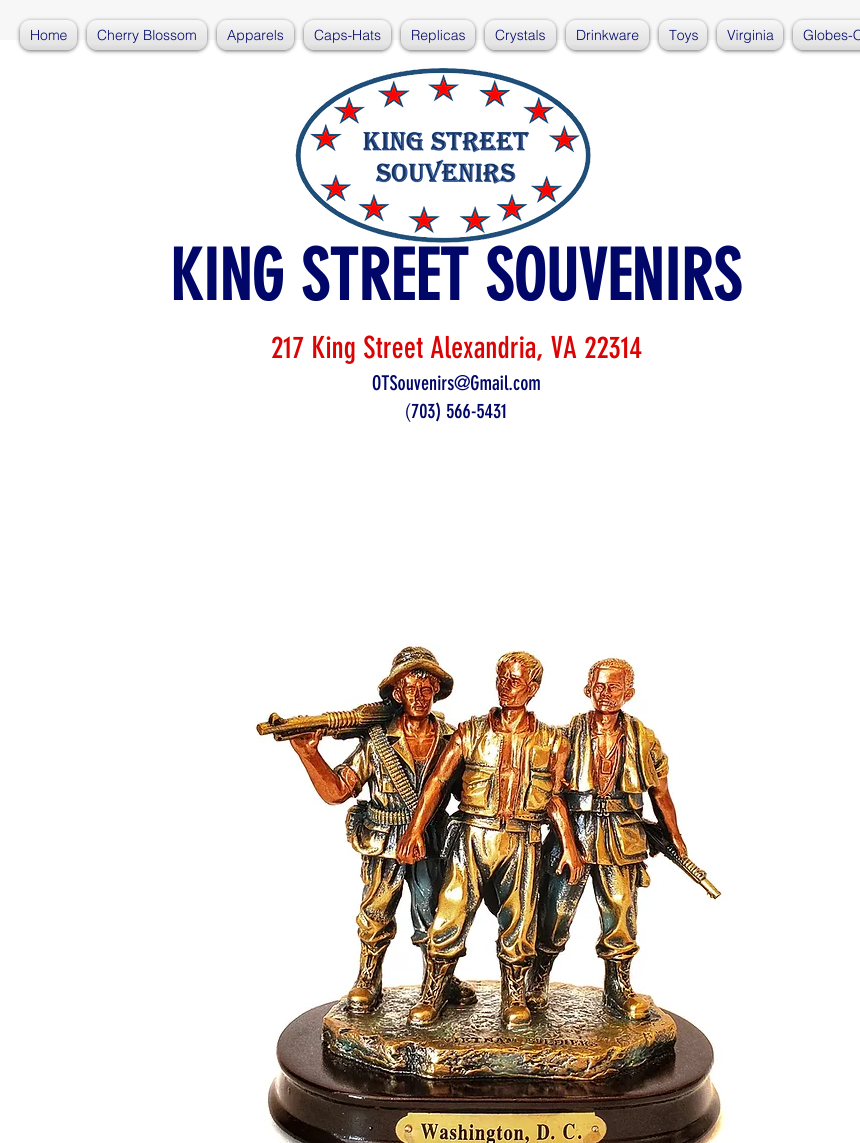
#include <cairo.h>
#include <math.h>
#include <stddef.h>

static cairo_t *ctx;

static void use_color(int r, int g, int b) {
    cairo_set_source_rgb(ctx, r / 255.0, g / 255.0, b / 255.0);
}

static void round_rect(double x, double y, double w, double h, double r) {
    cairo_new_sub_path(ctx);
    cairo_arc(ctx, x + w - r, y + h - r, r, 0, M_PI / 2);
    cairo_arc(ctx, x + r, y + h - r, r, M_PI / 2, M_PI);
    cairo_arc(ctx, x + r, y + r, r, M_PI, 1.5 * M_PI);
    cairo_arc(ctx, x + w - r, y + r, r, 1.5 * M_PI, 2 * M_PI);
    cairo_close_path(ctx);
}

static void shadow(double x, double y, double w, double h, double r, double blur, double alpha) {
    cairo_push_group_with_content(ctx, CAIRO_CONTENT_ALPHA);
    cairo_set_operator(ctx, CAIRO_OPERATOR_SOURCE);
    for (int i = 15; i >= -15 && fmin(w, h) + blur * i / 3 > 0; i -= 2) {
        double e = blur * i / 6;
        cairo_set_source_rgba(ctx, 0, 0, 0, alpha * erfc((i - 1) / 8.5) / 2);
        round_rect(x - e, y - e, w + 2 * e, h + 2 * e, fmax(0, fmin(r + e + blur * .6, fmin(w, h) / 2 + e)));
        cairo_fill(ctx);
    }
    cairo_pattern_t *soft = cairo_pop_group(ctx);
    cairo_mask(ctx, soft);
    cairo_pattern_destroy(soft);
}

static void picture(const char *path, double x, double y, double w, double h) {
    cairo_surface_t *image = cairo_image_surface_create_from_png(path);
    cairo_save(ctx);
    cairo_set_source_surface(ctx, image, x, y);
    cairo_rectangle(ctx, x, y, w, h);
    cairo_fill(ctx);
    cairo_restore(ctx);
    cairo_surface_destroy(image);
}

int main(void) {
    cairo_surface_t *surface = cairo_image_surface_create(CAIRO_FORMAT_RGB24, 860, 1143);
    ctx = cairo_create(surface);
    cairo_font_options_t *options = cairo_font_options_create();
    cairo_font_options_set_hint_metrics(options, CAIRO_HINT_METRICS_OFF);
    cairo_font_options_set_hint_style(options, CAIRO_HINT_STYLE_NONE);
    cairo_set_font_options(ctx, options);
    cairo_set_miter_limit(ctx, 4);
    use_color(255, 255, 255);
    cairo_paint(ctx);
    use_color(247, 247, 247);
    cairo_rectangle(ctx, 0, 0, 860, 40);
    cairo_fill(ctx);
    use_color(0, 0, 0);
    shadow(20, 21, 57, 30, 10, 2, 0.6);
    use_color(255, 255, 255);
    round_rect(20, 20, 57, 30, 10);
    cairo_fill(ctx);
    picture("img1.png", 20, 20, 57, 30);
    cairo_select_font_face(ctx, "helvetica Light", CAIRO_FONT_SLANT_NORMAL, CAIRO_FONT_WEIGHT_NORMAL);
    cairo_set_font_size(ctx, 14);
    use_color(0, 7, 105);
    cairo_move_to(ctx, 30, 40);
    cairo_show_text(ctx, "Home");
    use_color(0, 0, 0);
    shadow(87, 21, 120, 30, 10, 2, 0.6);
    use_color(255, 255, 255);
    round_rect(87, 20, 120, 30, 10);
    cairo_fill(ctx);
    picture("img2.png", 87, 20, 120, 30);
    use_color(0, 7, 105);
    cairo_move_to(ctx, 97, 40);
    cairo_show_text(ctx, "Cherry Blossom");
    use_color(0, 0, 0);
    shadow(217, 21, 77, 30, 10, 2, 0.6);
    use_color(255, 255, 255);
    round_rect(217, 20, 77, 30, 10);
    cairo_fill(ctx);
    picture("img3.png", 217, 20, 77, 30);
    use_color(0, 7, 105);
    cairo_move_to(ctx, 227, 40);
    cairo_show_text(ctx, "Apparels");
    use_color(0, 0, 0);
    shadow(304, 21, 87, 30, 10, 2, 0.6);
    use_color(255, 255, 255);
    round_rect(304, 20, 87, 30, 10);
    cairo_fill(ctx);
    picture("img4.png", 304, 20, 87, 30);
    use_color(0, 7, 105);
    cairo_move_to(ctx, 314, 40);
    cairo_show_text(ctx, "Caps-Hats");
    use_color(0, 0, 0);
    shadow(401, 21, 74, 30, 10, 2, 0.6);
    use_color(255, 255, 255);
    round_rect(401, 20, 74, 30, 10);
    cairo_fill(ctx);
    picture("img5.png", 401, 20, 74, 30);
    use_color(0, 7, 105);
    cairo_move_to(ctx, 411, 40);
    cairo_show_text(ctx, "Replicas");
    use_color(0, 0, 0);
    shadow(485, 21, 71, 30, 10, 2, 0.6);
    use_color(255, 255, 255);
    round_rect(485, 20, 71, 30, 10);
    cairo_fill(ctx);
    picture("img6.png", 485, 20, 71, 30);
    use_color(0, 7, 105);
    cairo_move_to(ctx, 495, 40);
    cairo_show_text(ctx, "Crystals");
    use_color(0, 0, 0);
    shadow(566, 21, 83, 30, 10, 2, 0.6);
    use_color(255, 255, 255);
    round_rect(566, 20, 83, 30, 10);
    cairo_fill(ctx);
    picture("img7.png", 566, 20, 83, 30);
    use_color(0, 7, 105);
    cairo_move_to(ctx, 576, 40);
    cairo_show_text(ctx, "Drinkware");
    use_color(0, 0, 0);
    shadow(659, 21, 48, 30, 10, 2, 0.6);
    use_color(255, 255, 255);
    round_rect(659, 20, 48, 30, 10);
    cairo_fill(ctx);
    picture("img8.png", 659, 20, 48, 30);
    use_color(0, 7, 105);
    cairo_move_to(ctx, 669, 40);
    cairo_show_text(ctx, "Toys");
    use_color(0, 0, 0);
    shadow(717, 21, 66, 30, 10, 2, 0.6);
    use_color(255, 255, 255);
    round_rect(717, 20, 66, 30, 10);
    cairo_fill(ctx);
    picture("img9.png", 717, 20, 66, 30);
    use_color(0, 7, 105);
    cairo_move_to(ctx, 727, 40);
    cairo_show_text(ctx, "Virginia");
    use_color(0, 0, 0);
    shadow(793, 21, 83, 30, 10, 2, 0.6);
    use_color(255, 255, 255);
    round_rect(793, 20, 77, 30, 10);
    cairo_fill(ctx);
    picture("img10.png", 793, 20, 67, 30);
    use_color(0, 7, 105);
    cairo_move_to(ctx, 803, 40);
    cairo_show_text(ctx, "Globes-O");
    picture("img11.png", 295, 67, 296, 176);
    cairo_select_font_face(ctx, "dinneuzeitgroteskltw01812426", CAIRO_FONT_SLANT_NORMAL, CAIRO_FONT_WEIGHT_BOLD);
    cairo_set_font_size(ctx, 70);
    cairo_move_to(ctx, 170, 300);
    cairo_show_text(ctx, "KING STREET SOUVENIRS");
    cairo_select_font_face(ctx, "dinneuzeitgroteskltw01812426", CAIRO_FONT_SLANT_NORMAL, CAIRO_FONT_WEIGHT_NORMAL);
    cairo_set_font_size(ctx, 30);
    use_color(219, 4, 4);
    cairo_move_to(ctx, 271, 358);
    cairo_show_text(ctx, "217 King Street Alexandria, VA 22314");
    cairo_set_font_size(ctx, 20);
    use_color(0, 7, 105);
    cairo_move_to(ctx, 372, 390);
    cairo_show_text(ctx, "OTSouvenirs@Gmail.com");
    cairo_select_font_face(ctx, "helvetica Light", CAIRO_FONT_SLANT_NORMAL, CAIRO_FONT_WEIGHT_NORMAL);
    cairo_move_to(ctx, 405, 418);
    cairo_show_text(ctx, "(");
    cairo_select_font_face(ctx, "dinneuzeitgroteskltw01812426", CAIRO_FONT_SLANT_NORMAL, CAIRO_FONT_WEIGHT_NORMAL);
    cairo_move_to(ctx, 411, 418);
    cairo_show_text(ctx, "703) 566-5431");
    picture("img12.png", 254, 643, 475, 500);
    cairo_surface_write_to_png(surface, "result.png");
    cairo_font_options_destroy(options);
    cairo_destroy(ctx);
    cairo_surface_destroy(surface);
    return 0;
}
